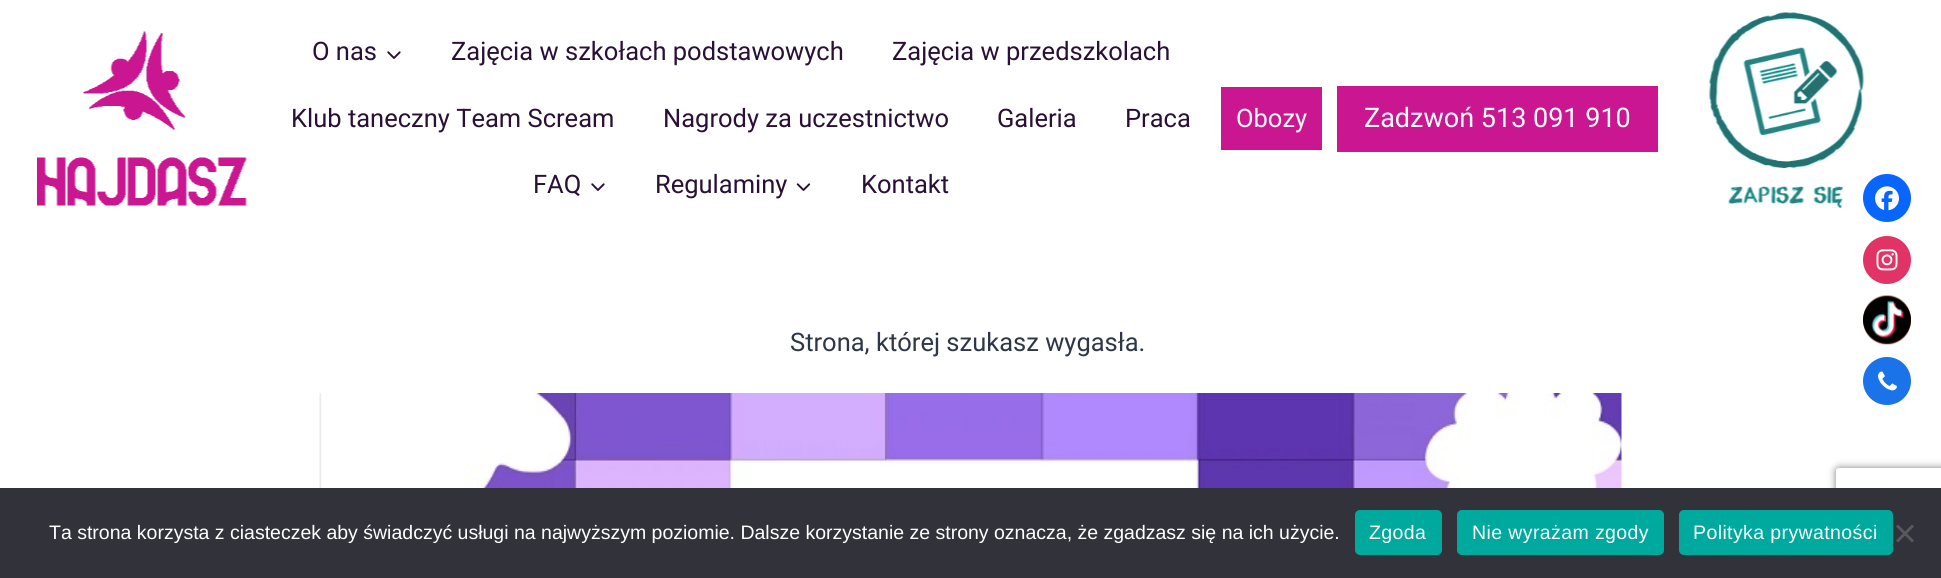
#include <cairo.h>
#include <math.h>
#include <stddef.h>

static cairo_t *ctx;

static void use_color(int r, int g, int b) {
    cairo_set_source_rgb(ctx, r / 255.0, g / 255.0, b / 255.0);
}

static void spaced_text(double x, double y, const char *s, double letter, double word) {
    cairo_move_to(ctx, x, y);
    while (*s) {
        char ch[5] = {0};
        int n = 0;
        do ch[n++] = *s++; while ((*s & 0xC0) == 0x80);
        cairo_show_text(ctx, ch);
        cairo_rel_move_to(ctx, letter + word * (*ch == ' '), 0);
    }
}

static void round_rect(double x, double y, double w, double h, double r) {
    cairo_new_sub_path(ctx);
    cairo_arc(ctx, x + w - r, y + h - r, r, 0, M_PI / 2);
    cairo_arc(ctx, x + r, y + h - r, r, M_PI / 2, M_PI);
    cairo_arc(ctx, x + r, y + r, r, M_PI, 1.5 * M_PI);
    cairo_arc(ctx, x + w - r, y + r, r, 1.5 * M_PI, 2 * M_PI);
    cairo_close_path(ctx);
}

static void shadow(double x, double y, double w, double h, double r, double blur, double alpha) {
    cairo_push_group_with_content(ctx, CAIRO_CONTENT_ALPHA);
    cairo_set_operator(ctx, CAIRO_OPERATOR_SOURCE);
    for (int i = 15; i >= -15 && fmin(w, h) + blur * i / 3 > 0; i -= 2) {
        double e = blur * i / 6;
        cairo_set_source_rgba(ctx, 0, 0, 0, alpha * erfc((i - 1) / 8.5) / 2);
        round_rect(x - e, y - e, w + 2 * e, h + 2 * e, fmax(0, fmin(r + e + blur * .6, fmin(w, h) / 2 + e)));
        cairo_fill(ctx);
    }
    cairo_pattern_t *soft = cairo_pop_group(ctx);
    cairo_mask(ctx, soft);
    cairo_pattern_destroy(soft);
}

static void picture(const char *path, double x, double y, double w, double h) {
    cairo_surface_t *image = cairo_image_surface_create_from_png(path);
    cairo_save(ctx);
    cairo_set_source_surface(ctx, image, x, y);
    cairo_rectangle(ctx, x, y, w, h);
    cairo_fill(ctx);
    cairo_restore(ctx);
    cairo_surface_destroy(image);
}

int main(void) {
    cairo_surface_t *surface = cairo_image_surface_create(CAIRO_FORMAT_RGB24, 1941, 578);
    ctx = cairo_create(surface);
    cairo_font_options_t *options = cairo_font_options_create();
    cairo_font_options_set_hint_metrics(options, CAIRO_HINT_METRICS_OFF);
    cairo_font_options_set_hint_style(options, CAIRO_HINT_STYLE_NONE);
    cairo_set_font_options(ctx, options);
    cairo_set_miter_limit(ctx, 4);
    use_color(255, 255, 255);
    cairo_paint(ctx);
    picture("img1.png", 37, 31, 210, 175);
    cairo_select_font_face(ctx, "Roboto", CAIRO_FONT_SLANT_NORMAL, CAIRO_FONT_WEIGHT_NORMAL);
    cairo_set_font_size(ctx, 25.5);
    use_color(42, 16, 53);
    cairo_move_to(ctx, 312, 60);
    cairo_show_text(ctx, "O nas");
    picture("img2.png", 387, 51, 14, 8);
    cairo_move_to(ctx, 451, 60);
    cairo_show_text(ctx, "Zajęcia w szkołach podstawowych");
    cairo_move_to(ctx, 892, 60);
    cairo_show_text(ctx, "Zajęcia w przedszkolach");
    cairo_move_to(ctx, 291, 127);
    cairo_show_text(ctx, "Klub taneczny Team Scream");
    cairo_move_to(ctx, 663, 127);
    cairo_show_text(ctx, "Nagrody za uczestnictwo");
    cairo_move_to(ctx, 997, 127);
    cairo_show_text(ctx, "Galeria");
    cairo_move_to(ctx, 1125, 127);
    cairo_show_text(ctx, "Praca");
    cairo_move_to(ctx, 533, 193);
    cairo_show_text(ctx, "FAQ");
    picture("img2.png", 591, 183, 14, 8);
    cairo_move_to(ctx, 655, 193);
    cairo_show_text(ctx, "Regulaminy");
    picture("img3.png", 796, 183, 15, 8);
    cairo_move_to(ctx, 861, 193);
    cairo_show_text(ctx, "Kontakt");
    use_color(203, 22, 146);
    cairo_rectangle(ctx, 1221, 87, 101, 63);
    cairo_fill(ctx);
    use_color(249, 250, 247);
    cairo_move_to(ctx, 1236, 127);
    cairo_show_text(ctx, "Obozy");
    use_color(203, 22, 146);
    cairo_rectangle(ctx, 1337, 86, 321, 66);
    cairo_fill(ctx);
    cairo_set_font_size(ctx, 27);
    use_color(255, 255, 255);
    cairo_move_to(ctx, 1364, 127);
    cairo_show_text(ctx, "Zadzwoń 513 091 910");
    picture("img4.png", 1709, 12, 155, 196);
    cairo_set_font_size(ctx, 25.5);
    use_color(45, 55, 72);
    cairo_move_to(ctx, 790, 351);
    cairo_show_text(ctx, "Strona, której szukasz wygasła.");
    picture("img5.png", 319, 393, 1303, 95);
    use_color(8, 102, 255);
    cairo_arc(ctx, 1887, 198, 24, 0, 2 * M_PI);
    cairo_fill(ctx);
    picture("img6.png", 1875, 186, 24, 25);
    use_color(226, 51, 103);
    cairo_arc(ctx, 1887, 260, 24, 0, 2 * M_PI);
    cairo_fill(ctx);
    picture("img7.png", 1876, 249, 22, 22);
    use_color(241, 100, 30);
    cairo_arc(ctx, 1887, 320, 24, 0, 2 * M_PI);
    cairo_fill(ctx);
    picture("img8.png", 1863, 295, 48, 50);
    use_color(26, 115, 232);
    cairo_arc(ctx, 1887, 381, 24, 0, 2 * M_PI);
    cairo_fill(ctx);
    picture("img9.png", 1878, 371, 19, 20);
    cairo_save(ctx);
    cairo_set_fill_rule(ctx, CAIRO_FILL_RULE_EVEN_ODD);
    cairo_new_path(ctx);
    cairo_move_to(ctx, 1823, 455);
    cairo_line_to(ctx, 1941, 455);
    cairo_line_to(ctx, 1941, 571);
    cairo_line_to(ctx, 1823, 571);
    cairo_close_path(ctx);
    cairo_move_to(ctx, 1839, 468);
    cairo_line_to(ctx, 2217, 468);
    cairo_curve_to(ctx, 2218.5, 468, 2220, 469.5, 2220, 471);
    cairo_line_to(ctx, 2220, 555);
    cairo_curve_to(ctx, 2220, 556.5, 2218.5, 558, 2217, 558);
    cairo_line_to(ctx, 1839, 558);
    cairo_curve_to(ctx, 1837.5, 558, 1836, 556.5, 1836, 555);
    cairo_line_to(ctx, 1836, 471);
    cairo_curve_to(ctx, 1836, 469.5, 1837.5, 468, 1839, 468);
    cairo_close_path(ctx);
    cairo_clip(ctx);
    use_color(128, 128, 128);
    shadow(1836, 468, 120, 90, 3, 4, 1);
    cairo_restore(ctx);
    use_color(50, 50, 58);
    cairo_rectangle(ctx, 0, 488, 1941, 90);
    cairo_fill(ctx);
    cairo_select_font_face(ctx, "Liberation Sans", CAIRO_FONT_SLANT_NORMAL, CAIRO_FONT_WEIGHT_NORMAL);
    cairo_set_font_size(ctx, 19.5);
    use_color(255, 255, 255);
    cairo_move_to(ctx, 49, 539);
    cairo_show_text(ctx, "Ta strona korzysta z ciasteczek aby świadczyć usługi na najwyższym poziomie. Dalsze korzystanie ze strony oznacza, że zgadzasz się na ich użycie.");
    use_color(0, 169, 157);
    round_rect(1355, 510, 87, 45, 5);
    cairo_fill(ctx);
    use_color(255, 255, 255);
    spaced_text(1369, 539, "Zgoda", 0.4, 0);
    use_color(0, 169, 157);
    round_rect(1457, 510, 207, 45, 5);
    cairo_fill(ctx);
    use_color(255, 255, 255);
    spaced_text(1472, 539, "Nie wyrażam zgody", 0.4, 0);
    use_color(0, 169, 157);
    round_rect(1679, 510, 214, 45, 5);
    cairo_fill(ctx);
    use_color(255, 255, 255);
    spaced_text(1693, 539, "Polityka prywatności", 0.4, 0);
    use_color(89, 89, 93);
    cairo_new_path(ctx);
    cairo_move_to(ctx, 1912, 524.5);
    cairo_line_to(ctx, 1914, 526.5);
    cairo_line_to(ctx, 1898, 542.5);
    cairo_line_to(ctx, 1896, 540.5);
    cairo_close_path(ctx);
    cairo_fill(ctx);
    cairo_new_path(ctx);
    cairo_move_to(ctx, 1896, 526.5);
    cairo_line_to(ctx, 1898, 524.5);
    cairo_line_to(ctx, 1914, 540.5);
    cairo_line_to(ctx, 1912, 542.5);
    cairo_close_path(ctx);
    cairo_fill(ctx);
    cairo_surface_write_to_png(surface, "result.png");
    cairo_font_options_destroy(options);
    cairo_destroy(ctx);
    cairo_surface_destroy(surface);
    return 0;
}
